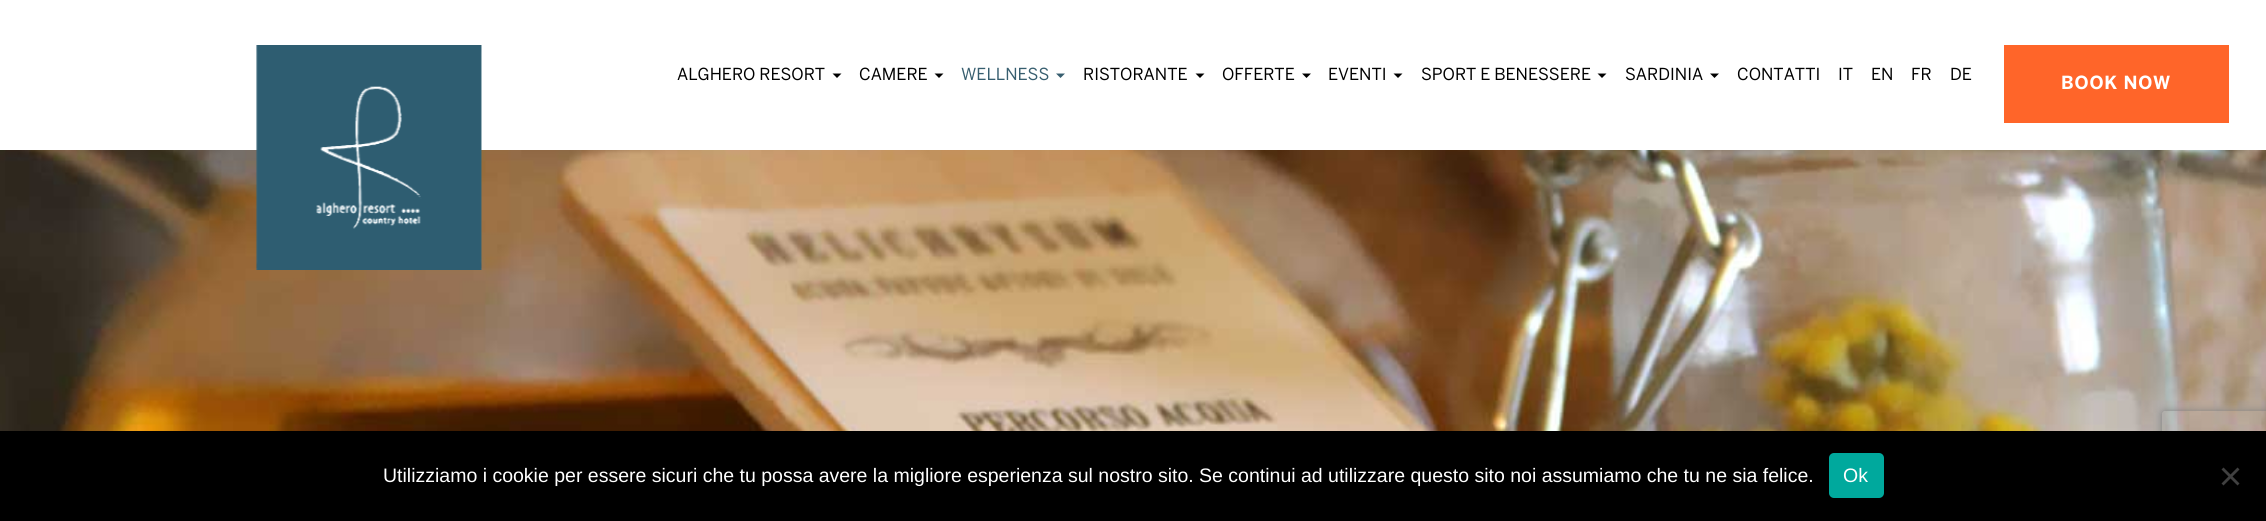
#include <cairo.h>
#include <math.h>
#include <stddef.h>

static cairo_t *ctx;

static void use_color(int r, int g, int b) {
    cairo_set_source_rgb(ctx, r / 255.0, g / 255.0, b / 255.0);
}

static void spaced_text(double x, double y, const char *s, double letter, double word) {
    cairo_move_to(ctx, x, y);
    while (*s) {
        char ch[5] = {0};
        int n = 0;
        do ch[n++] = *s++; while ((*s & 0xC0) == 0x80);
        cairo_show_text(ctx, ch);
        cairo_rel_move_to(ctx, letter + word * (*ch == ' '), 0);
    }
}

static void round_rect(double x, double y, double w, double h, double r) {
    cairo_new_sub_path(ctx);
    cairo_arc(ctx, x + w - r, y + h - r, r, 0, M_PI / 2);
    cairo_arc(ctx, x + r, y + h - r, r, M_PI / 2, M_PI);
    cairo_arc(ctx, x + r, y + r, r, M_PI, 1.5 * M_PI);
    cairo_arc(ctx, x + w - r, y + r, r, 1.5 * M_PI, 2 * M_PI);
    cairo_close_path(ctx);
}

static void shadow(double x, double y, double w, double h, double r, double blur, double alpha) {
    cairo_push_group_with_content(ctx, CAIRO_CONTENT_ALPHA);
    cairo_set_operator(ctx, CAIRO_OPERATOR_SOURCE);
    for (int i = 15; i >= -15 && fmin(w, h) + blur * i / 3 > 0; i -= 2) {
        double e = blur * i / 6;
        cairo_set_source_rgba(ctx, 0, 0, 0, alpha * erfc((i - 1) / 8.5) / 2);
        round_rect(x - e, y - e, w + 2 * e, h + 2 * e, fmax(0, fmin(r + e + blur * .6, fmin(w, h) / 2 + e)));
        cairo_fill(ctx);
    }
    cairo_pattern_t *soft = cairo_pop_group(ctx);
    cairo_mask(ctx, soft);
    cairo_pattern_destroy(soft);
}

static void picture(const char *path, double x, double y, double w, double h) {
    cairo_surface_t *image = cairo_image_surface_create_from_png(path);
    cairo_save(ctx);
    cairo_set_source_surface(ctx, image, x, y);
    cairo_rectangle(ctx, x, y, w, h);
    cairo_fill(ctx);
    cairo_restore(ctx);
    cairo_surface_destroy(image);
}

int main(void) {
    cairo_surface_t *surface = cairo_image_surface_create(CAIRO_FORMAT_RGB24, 2266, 521);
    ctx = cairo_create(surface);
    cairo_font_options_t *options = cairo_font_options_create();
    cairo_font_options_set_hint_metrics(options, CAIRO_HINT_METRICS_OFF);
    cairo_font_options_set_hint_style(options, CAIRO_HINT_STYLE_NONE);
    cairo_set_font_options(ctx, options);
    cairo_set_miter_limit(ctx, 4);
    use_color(255, 255, 255);
    cairo_paint(ctx);
    picture("img2.png", 0, 150, 2266, 281);
    picture("img1.png", 256, 45, 226, 225);
    cairo_select_font_face(ctx, "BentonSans", CAIRO_FONT_SLANT_NORMAL, CAIRO_FONT_WEIGHT_NORMAL);
    cairo_set_font_size(ctx, 16.5);
    use_color(0, 0, 0);
    cairo_move_to(ctx, 677, 80);
    cairo_show_text(ctx, "ALGHERO RESORT");
    cairo_new_path(ctx);
    cairo_move_to(ctx, 832.5, 73.5);
    cairo_line_to(ctx, 841.5, 73.5);
    cairo_line_to(ctx, 837, 78);
    cairo_close_path(ctx);
    cairo_fill(ctx);
    cairo_move_to(ctx, 859, 80);
    cairo_show_text(ctx, "CAMERE");
    cairo_new_path(ctx);
    cairo_move_to(ctx, 934.5, 73.5);
    cairo_line_to(ctx, 943.5, 73.5);
    cairo_line_to(ctx, 939, 78);
    cairo_close_path(ctx);
    cairo_fill(ctx);
    use_color(55, 94, 111);
    cairo_move_to(ctx, 961, 80);
    cairo_show_text(ctx, "WELLNESS");
    cairo_new_path(ctx);
    cairo_move_to(ctx, 1056, 73.5);
    cairo_line_to(ctx, 1065, 73.5);
    cairo_line_to(ctx, 1060.5, 78);
    cairo_close_path(ctx);
    cairo_fill(ctx);
    use_color(0, 0, 0);
    cairo_move_to(ctx, 1083, 80);
    cairo_show_text(ctx, "RISTORANTE");
    cairo_new_path(ctx);
    cairo_move_to(ctx, 1195.5, 73.5);
    cairo_line_to(ctx, 1204.5, 73.5);
    cairo_line_to(ctx, 1200, 78);
    cairo_close_path(ctx);
    cairo_fill(ctx);
    cairo_move_to(ctx, 1222, 80);
    cairo_show_text(ctx, "OFFERTE");
    cairo_new_path(ctx);
    cairo_move_to(ctx, 1302, 73.5);
    cairo_line_to(ctx, 1311, 73.5);
    cairo_line_to(ctx, 1306.5, 78);
    cairo_close_path(ctx);
    cairo_fill(ctx);
    cairo_move_to(ctx, 1328, 80);
    cairo_show_text(ctx, "EVENTI");
    cairo_new_path(ctx);
    cairo_move_to(ctx, 1393.5, 73.5);
    cairo_line_to(ctx, 1402.5, 73.5);
    cairo_line_to(ctx, 1398, 78);
    cairo_close_path(ctx);
    cairo_fill(ctx);
    cairo_move_to(ctx, 1421, 80);
    cairo_show_text(ctx, "SPORT E BENESSERE");
    cairo_new_path(ctx);
    cairo_move_to(ctx, 1597.5, 73.5);
    cairo_line_to(ctx, 1606.5, 73.5);
    cairo_line_to(ctx, 1602, 78);
    cairo_close_path(ctx);
    cairo_fill(ctx);
    cairo_move_to(ctx, 1625, 80);
    cairo_show_text(ctx, "SARDINIA");
    cairo_new_path(ctx);
    cairo_move_to(ctx, 1710, 73.5);
    cairo_line_to(ctx, 1719, 73.5);
    cairo_line_to(ctx, 1714.5, 78);
    cairo_close_path(ctx);
    cairo_fill(ctx);
    cairo_move_to(ctx, 1737, 80);
    cairo_show_text(ctx, "CONTATTI");
    cairo_move_to(ctx, 1838, 80);
    cairo_show_text(ctx, "IT");
    cairo_move_to(ctx, 1871, 80);
    cairo_show_text(ctx, "EN");
    cairo_move_to(ctx, 1911, 80);
    cairo_show_text(ctx, "FR");
    cairo_move_to(ctx, 1950, 80);
    cairo_show_text(ctx, "DE");
    use_color(255, 101, 41);
    cairo_rectangle(ctx, 2004, 45, 225, 78);
    cairo_fill(ctx);
    cairo_select_font_face(ctx, "BentonSans", CAIRO_FONT_SLANT_NORMAL, CAIRO_FONT_WEIGHT_BOLD);
    cairo_set_font_size(ctx, 18);
    use_color(255, 255, 255);
    spaced_text(2061, 89, "BOOK NOW", 0.75, 0);
    cairo_save(ctx);
    cairo_set_fill_rule(ctx, CAIRO_FILL_RULE_EVEN_ODD);
    cairo_new_path(ctx);
    cairo_move_to(ctx, 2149, 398);
    cairo_line_to(ctx, 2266, 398);
    cairo_line_to(ctx, 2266, 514);
    cairo_line_to(ctx, 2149, 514);
    cairo_close_path(ctx);
    cairo_move_to(ctx, 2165, 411);
    cairo_line_to(ctx, 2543, 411);
    cairo_curve_to(ctx, 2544.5, 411, 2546, 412.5, 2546, 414);
    cairo_line_to(ctx, 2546, 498);
    cairo_curve_to(ctx, 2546, 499.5, 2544.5, 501, 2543, 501);
    cairo_line_to(ctx, 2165, 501);
    cairo_curve_to(ctx, 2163.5, 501, 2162, 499.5, 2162, 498);
    cairo_line_to(ctx, 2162, 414);
    cairo_curve_to(ctx, 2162, 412.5, 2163.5, 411, 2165, 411);
    cairo_close_path(ctx);
    cairo_clip(ctx);
    use_color(128, 128, 128);
    shadow(2162, 411, 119, 90, 3, 4, 1);
    cairo_restore(ctx);
    use_color(0, 0, 0);
    cairo_rectangle(ctx, 0, 431, 2266, 90);
    cairo_fill(ctx);
    cairo_select_font_face(ctx, "Liberation Sans", CAIRO_FONT_SLANT_NORMAL, CAIRO_FONT_WEIGHT_NORMAL);
    cairo_set_font_size(ctx, 19.5);
    use_color(255, 255, 255);
    cairo_move_to(ctx, 383, 482);
    cairo_show_text(ctx, "Utilizziamo i cookie per essere sicuri che tu possa avere la migliore esperienza sul nostro sito. Se continui ad utilizzare questo sito noi assumiamo che tu ne sia felice.");
    use_color(0, 169, 157);
    round_rect(1829, 453, 55, 45, 5);
    cairo_fill(ctx);
    use_color(255, 255, 255);
    cairo_move_to(ctx, 1843, 482);
    cairo_show_text(ctx, "Ok");
    use_color(64, 64, 64);
    cairo_new_path(ctx);
    cairo_move_to(ctx, 2237.5, 467.5);
    cairo_line_to(ctx, 2239.5, 469.5);
    cairo_line_to(ctx, 2223.5, 485.5);
    cairo_line_to(ctx, 2221.5, 483.5);
    cairo_close_path(ctx);
    cairo_fill(ctx);
    cairo_new_path(ctx);
    cairo_move_to(ctx, 2221.5, 469.5);
    cairo_line_to(ctx, 2223.5, 467.5);
    cairo_line_to(ctx, 2239.5, 483.5);
    cairo_line_to(ctx, 2237.5, 485.5);
    cairo_close_path(ctx);
    cairo_fill(ctx);
    cairo_surface_write_to_png(surface, "result.png");
    cairo_font_options_destroy(options);
    cairo_destroy(ctx);
    cairo_surface_destroy(surface);
    return 0;
}
